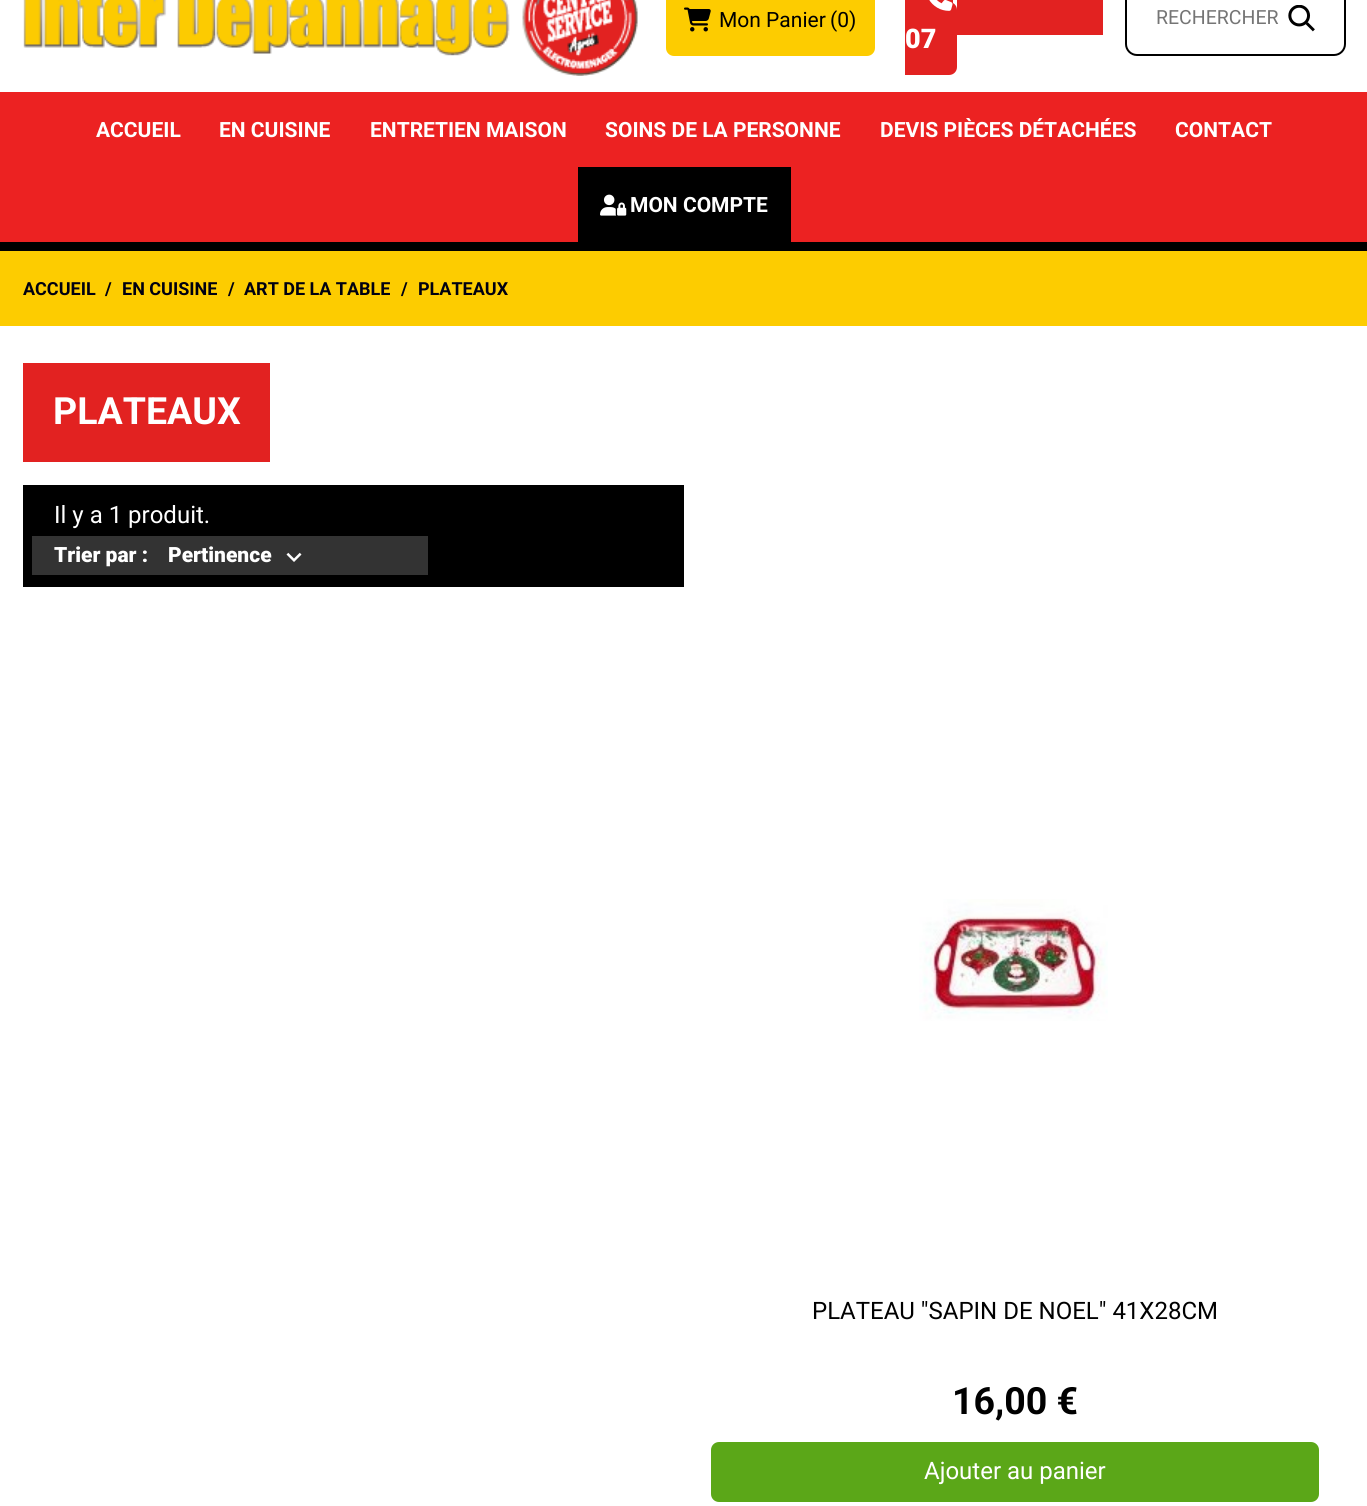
#include <cairo.h>
#include <math.h>
#include <stddef.h>

static cairo_t *ctx;

static void use_color(int r, int g, int b) {
    cairo_set_source_rgb(ctx, r / 255.0, g / 255.0, b / 255.0);
}

static void round_rect(double x, double y, double w, double h, double r) {
    cairo_new_sub_path(ctx);
    cairo_arc(ctx, x + w - r, y + h - r, r, 0, M_PI / 2);
    cairo_arc(ctx, x + r, y + h - r, r, M_PI / 2, M_PI);
    cairo_arc(ctx, x + r, y + r, r, M_PI, 1.5 * M_PI);
    cairo_arc(ctx, x + w - r, y + r, r, 1.5 * M_PI, 2 * M_PI);
    cairo_close_path(ctx);
}

static void picture(const char *path, double x, double y, double w, double h) {
    cairo_surface_t *image = cairo_image_surface_create_from_png(path);
    cairo_save(ctx);
    cairo_set_source_surface(ctx, image, x, y);
    cairo_rectangle(ctx, x, y, w, h);
    cairo_fill(ctx);
    cairo_restore(ctx);
    cairo_surface_destroy(image);
}

int main(void) {
    cairo_surface_t *surface = cairo_image_surface_create(CAIRO_FORMAT_RGB24, 1367, 1506);
    ctx = cairo_create(surface);
    cairo_font_options_t *options = cairo_font_options_create();
    cairo_font_options_set_hint_metrics(options, CAIRO_HINT_METRICS_OFF);
    cairo_font_options_set_hint_style(options, CAIRO_HINT_STYLE_NONE);
    cairo_set_font_options(ctx, options);
    cairo_set_miter_limit(ctx, 4);
    use_color(255, 255, 255);
    cairo_paint(ctx);
    picture("img1.png", 23, 0, 615, 76);
    use_color(253, 204, 0);
    round_rect(666, -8, 209, 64, 8);
    cairo_fill(ctx);
    picture("img2.png", 684, 7, 27, 25);
    cairo_select_font_face(ctx, "Roboto", CAIRO_FONT_SLANT_NORMAL, CAIRO_FONT_WEIGHT_NORMAL);
    cairo_set_font_size(ctx, 21);
    use_color(0, 0, 0);
    cairo_move_to(ctx, 719, 27);
    cairo_show_text(ctx, "Mon Panier");
    cairo_move_to(ctx, 830, 27);
    cairo_show_text(ctx, "(0)");
    round_rect(1126, -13, 219, 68, 11);
    cairo_stroke(ctx);
    cairo_set_font_size(ctx, 19.5);
    use_color(117, 117, 117);
    cairo_move_to(ctx, 1156, 24);
    cairo_show_text(ctx, "RECHERCHER");
    picture("img3.png", 1288, 5, 27, 27);
    use_color(226, 34, 33);
    cairo_rectangle(ctx, 905, 0, 48, 4);
    cairo_fill(ctx);
    cairo_new_path(ctx);
    cairo_move_to(ctx, 905, 2);
    cairo_line_to(ctx, 949, 2);
    cairo_curve_to(ctx, 953.5, 2, 957, 5.5, 957, 10);
    cairo_line_to(ctx, 957, 67);
    cairo_curve_to(ctx, 957, 71.5, 953.5, 75, 949, 75);
    cairo_line_to(ctx, 905, 75);
    cairo_close_path(ctx);
    cairo_fill(ctx);
    picture("img4.png", 929, 0, 24, 11);
    cairo_select_font_face(ctx, "Roboto Black", CAIRO_FONT_SLANT_NORMAL, CAIRO_FONT_WEIGHT_NORMAL);
    cairo_set_font_size(ctx, 27);
    use_color(255, 255, 255);
    cairo_move_to(ctx, 905, 48);
    cairo_show_text(ctx, "07");
    use_color(226, 34, 33);
    cairo_rectangle(ctx, 957, 0, 146, 35);
    cairo_fill(ctx);
    use_color(236, 34, 34);
    cairo_rectangle(ctx, 0, 92, 1367, 150);
    cairo_fill(ctx);
    use_color(0, 0, 0);
    cairo_rectangle(ctx, 0, 242, 1367, 9);
    cairo_fill(ctx);
    cairo_select_font_face(ctx, "Roboto", CAIRO_FONT_SLANT_NORMAL, CAIRO_FONT_WEIGHT_BOLD);
    cairo_set_font_size(ctx, 21);
    use_color(255, 255, 255);
    cairo_move_to(ctx, 96, 137);
    cairo_show_text(ctx, "ACCUEIL");
    cairo_move_to(ctx, 219, 137);
    cairo_show_text(ctx, "EN CUISINE");
    cairo_move_to(ctx, 370, 137);
    cairo_show_text(ctx, "ENTRETIEN MAISON");
    cairo_move_to(ctx, 605, 137);
    cairo_show_text(ctx, "SOINS DE LA PERSONNE");
    cairo_move_to(ctx, 880, 137);
    cairo_show_text(ctx, "DEVIS PIÈCES DÉTACHÉES");
    cairo_move_to(ctx, 1175, 137);
    cairo_show_text(ctx, "CONTACT");
    use_color(0, 0, 0);
    cairo_rectangle(ctx, 578, 167, 213, 75);
    cairo_fill(ctx);
    picture("img5.png", 600, 194, 27, 22);
    use_color(255, 255, 255);
    cairo_move_to(ctx, 630, 212);
    cairo_show_text(ctx, "MON COMPTE");
    use_color(253, 204, 0);
    cairo_rectangle(ctx, 0, 251, 1367, 75);
    cairo_fill(ctx);
    cairo_set_font_size(ctx, 18);
    use_color(0, 0, 17);
    cairo_move_to(ctx, 23, 295);
    cairo_show_text(ctx, "ACCUEIL");
    cairo_move_to(ctx, 105, 295);
    cairo_show_text(ctx, "/");
    cairo_move_to(ctx, 122, 295);
    cairo_show_text(ctx, "EN CUISINE");
    cairo_move_to(ctx, 228, 295);
    cairo_show_text(ctx, "/");
    cairo_move_to(ctx, 244, 295);
    cairo_show_text(ctx, "ART DE LA TABLE");
    cairo_move_to(ctx, 401, 295);
    cairo_show_text(ctx, "/");
    cairo_move_to(ctx, 418, 295);
    cairo_show_text(ctx, "PLATEAUX");
    use_color(226, 34, 33);
    cairo_rectangle(ctx, 23, 363, 247, 99);
    cairo_fill(ctx);
    cairo_set_font_size(ctx, 37.5);
    use_color(255, 255, 255);
    cairo_move_to(ctx, 53, 424);
    cairo_show_text(ctx, "PLATEAUX");
    use_color(0, 0, 0);
    cairo_rectangle(ctx, 23, 485, 661, 102);
    cairo_fill(ctx);
    cairo_select_font_face(ctx, "Roboto", CAIRO_FONT_SLANT_NORMAL, CAIRO_FONT_WEIGHT_NORMAL);
    cairo_set_font_size(ctx, 24);
    use_color(255, 255, 255);
    cairo_move_to(ctx, 54, 523);
    cairo_show_text(ctx, "Il y a 1 produit.");
    use_color(51, 51, 51);
    cairo_rectangle(ctx, 32, 536, 396, 39);
    cairo_fill(ctx);
    cairo_select_font_face(ctx, "Roboto Black", CAIRO_FONT_SLANT_NORMAL, CAIRO_FONT_WEIGHT_NORMAL);
    cairo_set_font_size(ctx, 21);
    use_color(255, 255, 255);
    cairo_move_to(ctx, 54, 562);
    cairo_show_text(ctx, "Trier par :");
    cairo_move_to(ctx, 168, 562);
    cairo_show_text(ctx, "Pertinence");
    picture("img6.png", 286, 552, 16, 10);
    picture("img7.png", 919, 899, 189, 122);
    cairo_select_font_face(ctx, "Roboto", CAIRO_FONT_SLANT_NORMAL, CAIRO_FONT_WEIGHT_NORMAL);
    cairo_set_font_size(ctx, 24);
    use_color(0, 0, 0);
    cairo_move_to(ctx, 812, 1319);
    cairo_show_text(ctx, "PLATEAU \"SAPIN DE NOEL\" 41X28CM");
    cairo_select_font_face(ctx, "Roboto", CAIRO_FONT_SLANT_NORMAL, CAIRO_FONT_WEIGHT_BOLD);
    cairo_set_font_size(ctx, 37.5);
    cairo_move_to(ctx, 952, 1414);
    cairo_show_text(ctx, "16,00 €");
    use_color(91, 167, 24);
    round_rect(711, 1442, 608, 60, 8);
    cairo_fill(ctx);
    cairo_select_font_face(ctx, "Roboto", CAIRO_FONT_SLANT_NORMAL, CAIRO_FONT_WEIGHT_NORMAL);
    cairo_set_font_size(ctx, 24);
    use_color(255, 255, 255);
    cairo_move_to(ctx, 924, 1479);
    cairo_show_text(ctx, "Ajouter au panier");
    cairo_surface_write_to_png(surface, "result.png");
    cairo_font_options_destroy(options);
    cairo_destroy(ctx);
    cairo_surface_destroy(surface);
    return 0;
}
